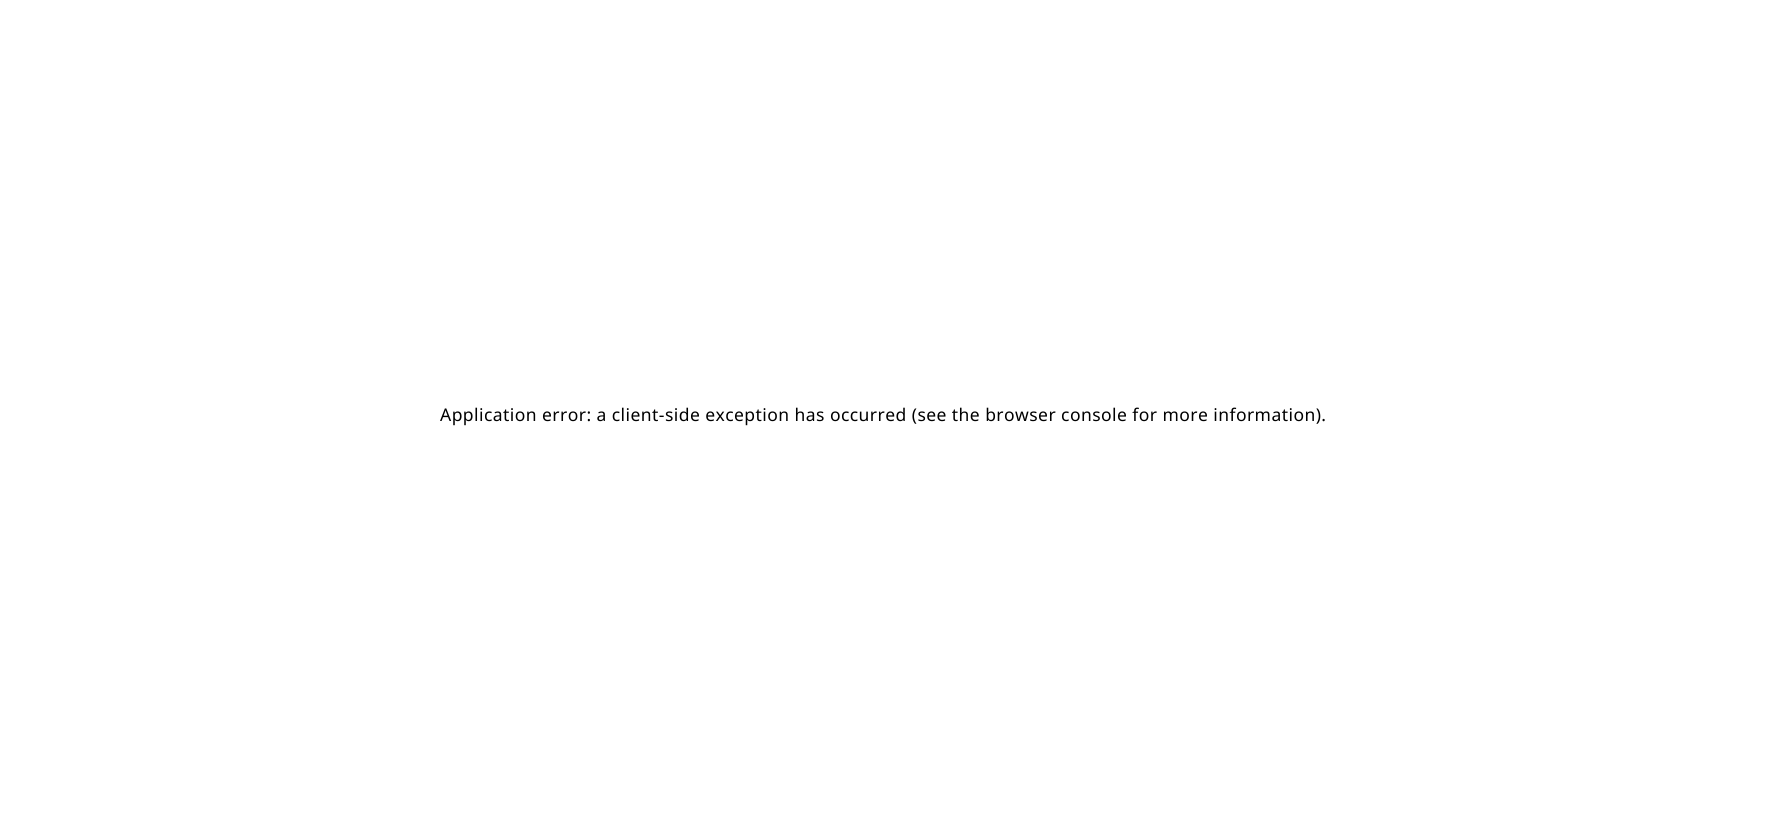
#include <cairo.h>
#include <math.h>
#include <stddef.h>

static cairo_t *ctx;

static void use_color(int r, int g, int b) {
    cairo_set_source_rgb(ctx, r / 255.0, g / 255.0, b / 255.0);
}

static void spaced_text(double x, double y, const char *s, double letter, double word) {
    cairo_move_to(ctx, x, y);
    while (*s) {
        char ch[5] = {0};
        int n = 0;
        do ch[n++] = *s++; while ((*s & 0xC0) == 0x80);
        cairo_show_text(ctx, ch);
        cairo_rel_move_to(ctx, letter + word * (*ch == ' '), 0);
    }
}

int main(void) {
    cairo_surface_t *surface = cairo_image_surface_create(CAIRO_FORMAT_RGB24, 1766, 830);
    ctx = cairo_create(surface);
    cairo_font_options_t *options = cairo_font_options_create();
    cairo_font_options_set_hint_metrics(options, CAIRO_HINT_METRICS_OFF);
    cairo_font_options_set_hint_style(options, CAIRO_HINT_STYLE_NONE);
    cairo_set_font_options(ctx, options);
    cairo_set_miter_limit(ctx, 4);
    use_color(255, 255, 255);
    cairo_paint(ctx);
    cairo_select_font_face(ctx, "Noto Sans", CAIRO_FONT_SLANT_NORMAL, CAIRO_FONT_WEIGHT_NORMAL);
    cairo_set_font_size(ctx, 17.5);
    use_color(0, 0, 0);
    spaced_text(440, 421, "Application error: a client-side exception has occurred (see the browser console for more information).", 0.44, 0);
    cairo_surface_write_to_png(surface, "result.png");
    cairo_font_options_destroy(options);
    cairo_destroy(ctx);
    cairo_surface_destroy(surface);
    return 0;
}
